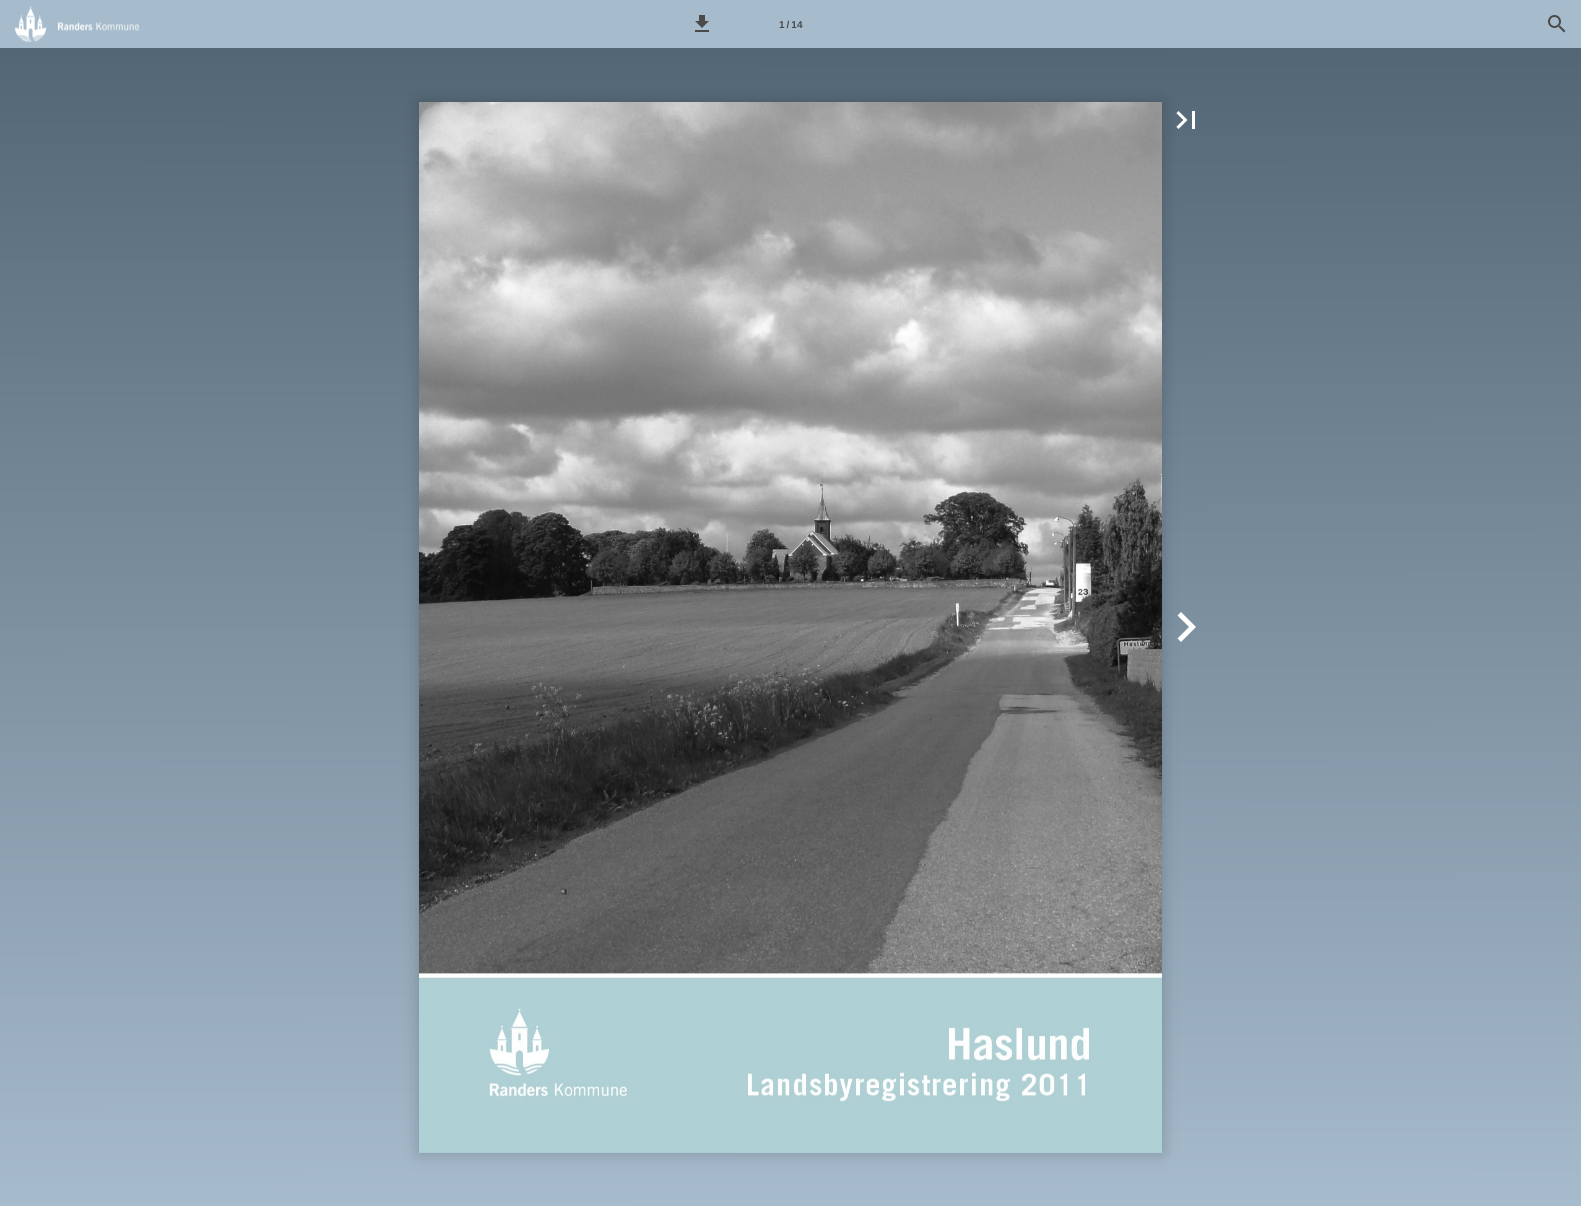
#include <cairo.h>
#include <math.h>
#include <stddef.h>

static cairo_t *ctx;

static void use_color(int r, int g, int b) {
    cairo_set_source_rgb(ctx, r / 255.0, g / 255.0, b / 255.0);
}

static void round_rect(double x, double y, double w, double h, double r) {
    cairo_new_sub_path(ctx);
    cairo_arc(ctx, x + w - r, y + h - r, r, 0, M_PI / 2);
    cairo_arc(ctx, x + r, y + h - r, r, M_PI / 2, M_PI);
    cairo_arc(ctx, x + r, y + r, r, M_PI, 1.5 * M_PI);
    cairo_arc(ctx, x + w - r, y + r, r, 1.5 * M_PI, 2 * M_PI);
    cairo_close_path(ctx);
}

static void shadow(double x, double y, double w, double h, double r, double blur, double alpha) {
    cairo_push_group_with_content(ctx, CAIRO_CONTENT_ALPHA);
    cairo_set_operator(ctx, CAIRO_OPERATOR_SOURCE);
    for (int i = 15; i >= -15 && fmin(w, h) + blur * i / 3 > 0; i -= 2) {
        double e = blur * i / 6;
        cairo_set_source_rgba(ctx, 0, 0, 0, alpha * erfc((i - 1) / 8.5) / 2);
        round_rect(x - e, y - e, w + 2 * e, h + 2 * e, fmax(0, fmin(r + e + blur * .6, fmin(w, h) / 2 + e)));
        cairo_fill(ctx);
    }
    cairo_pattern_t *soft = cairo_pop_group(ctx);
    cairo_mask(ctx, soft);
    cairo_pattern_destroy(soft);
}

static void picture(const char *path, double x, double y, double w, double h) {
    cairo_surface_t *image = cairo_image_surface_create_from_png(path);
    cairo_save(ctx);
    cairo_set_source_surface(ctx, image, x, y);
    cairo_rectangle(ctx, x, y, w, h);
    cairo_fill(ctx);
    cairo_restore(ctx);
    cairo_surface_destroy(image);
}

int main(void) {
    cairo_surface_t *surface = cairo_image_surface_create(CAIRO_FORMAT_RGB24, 1581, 1206);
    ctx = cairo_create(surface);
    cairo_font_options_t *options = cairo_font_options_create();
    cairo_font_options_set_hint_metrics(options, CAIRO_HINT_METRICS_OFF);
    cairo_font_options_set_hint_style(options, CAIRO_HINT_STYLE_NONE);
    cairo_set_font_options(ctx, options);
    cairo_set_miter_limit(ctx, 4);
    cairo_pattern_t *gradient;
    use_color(255, 255, 255);
    cairo_paint(ctx);
    use_color(166, 188, 204);
    cairo_rectangle(ctx, 0, 0, 1581, 48);
    cairo_fill(ctx);
    picture("img1.png", 15, 6, 124, 36);
    picture("img2.png", 695, 15, 14, 17);
    cairo_select_font_face(ctx, "Liberation Sans", CAIRO_FONT_SLANT_NORMAL, CAIRO_FONT_WEIGHT_BOLD);
    cairo_set_font_size(ctx, 10);
    use_color(74, 74, 74);
    cairo_move_to(ctx, 779, 28);
    cairo_show_text(ctx, "1 / 14");
    picture("img3.png", 1548, 15, 18, 18);
    gradient = cairo_pattern_create_linear(790, 48, 791, 1206);
    cairo_pattern_add_color_stop_rgba(gradient, 0, 0.325, 0.4, 0.459, 1);
    cairo_pattern_add_color_stop_rgba(gradient, 1, 0.651, 0.733, 0.8, 1);
    cairo_set_source(ctx, gradient);
    cairo_pattern_destroy(gradient);
    cairo_rectangle(ctx, 0, 48, 1581, 1158);
    cairo_fill(ctx);
    use_color(0, 0, 0);
    shadow(419, 102, 743, 1051, 0, 8, 0.2);
    picture("img4.png", 419, 102, 743, 1051);
    picture("img5.png", 1176, 111, 19, 18);
    use_color(255, 255, 255);
    cairo_new_path(ctx);
    cairo_move_to(ctx, 1181, 612);
    cairo_line_to(ctx, 1177.5, 615.5);
    cairo_line_to(ctx, 1189, 627);
    cairo_line_to(ctx, 1177.5, 638.5);
    cairo_line_to(ctx, 1181, 642);
    cairo_line_to(ctx, 1196, 627);
    cairo_close_path(ctx);
    cairo_fill(ctx);
    cairo_surface_write_to_png(surface, "result.png");
    cairo_font_options_destroy(options);
    cairo_destroy(ctx);
    cairo_surface_destroy(surface);
    return 0;
}
